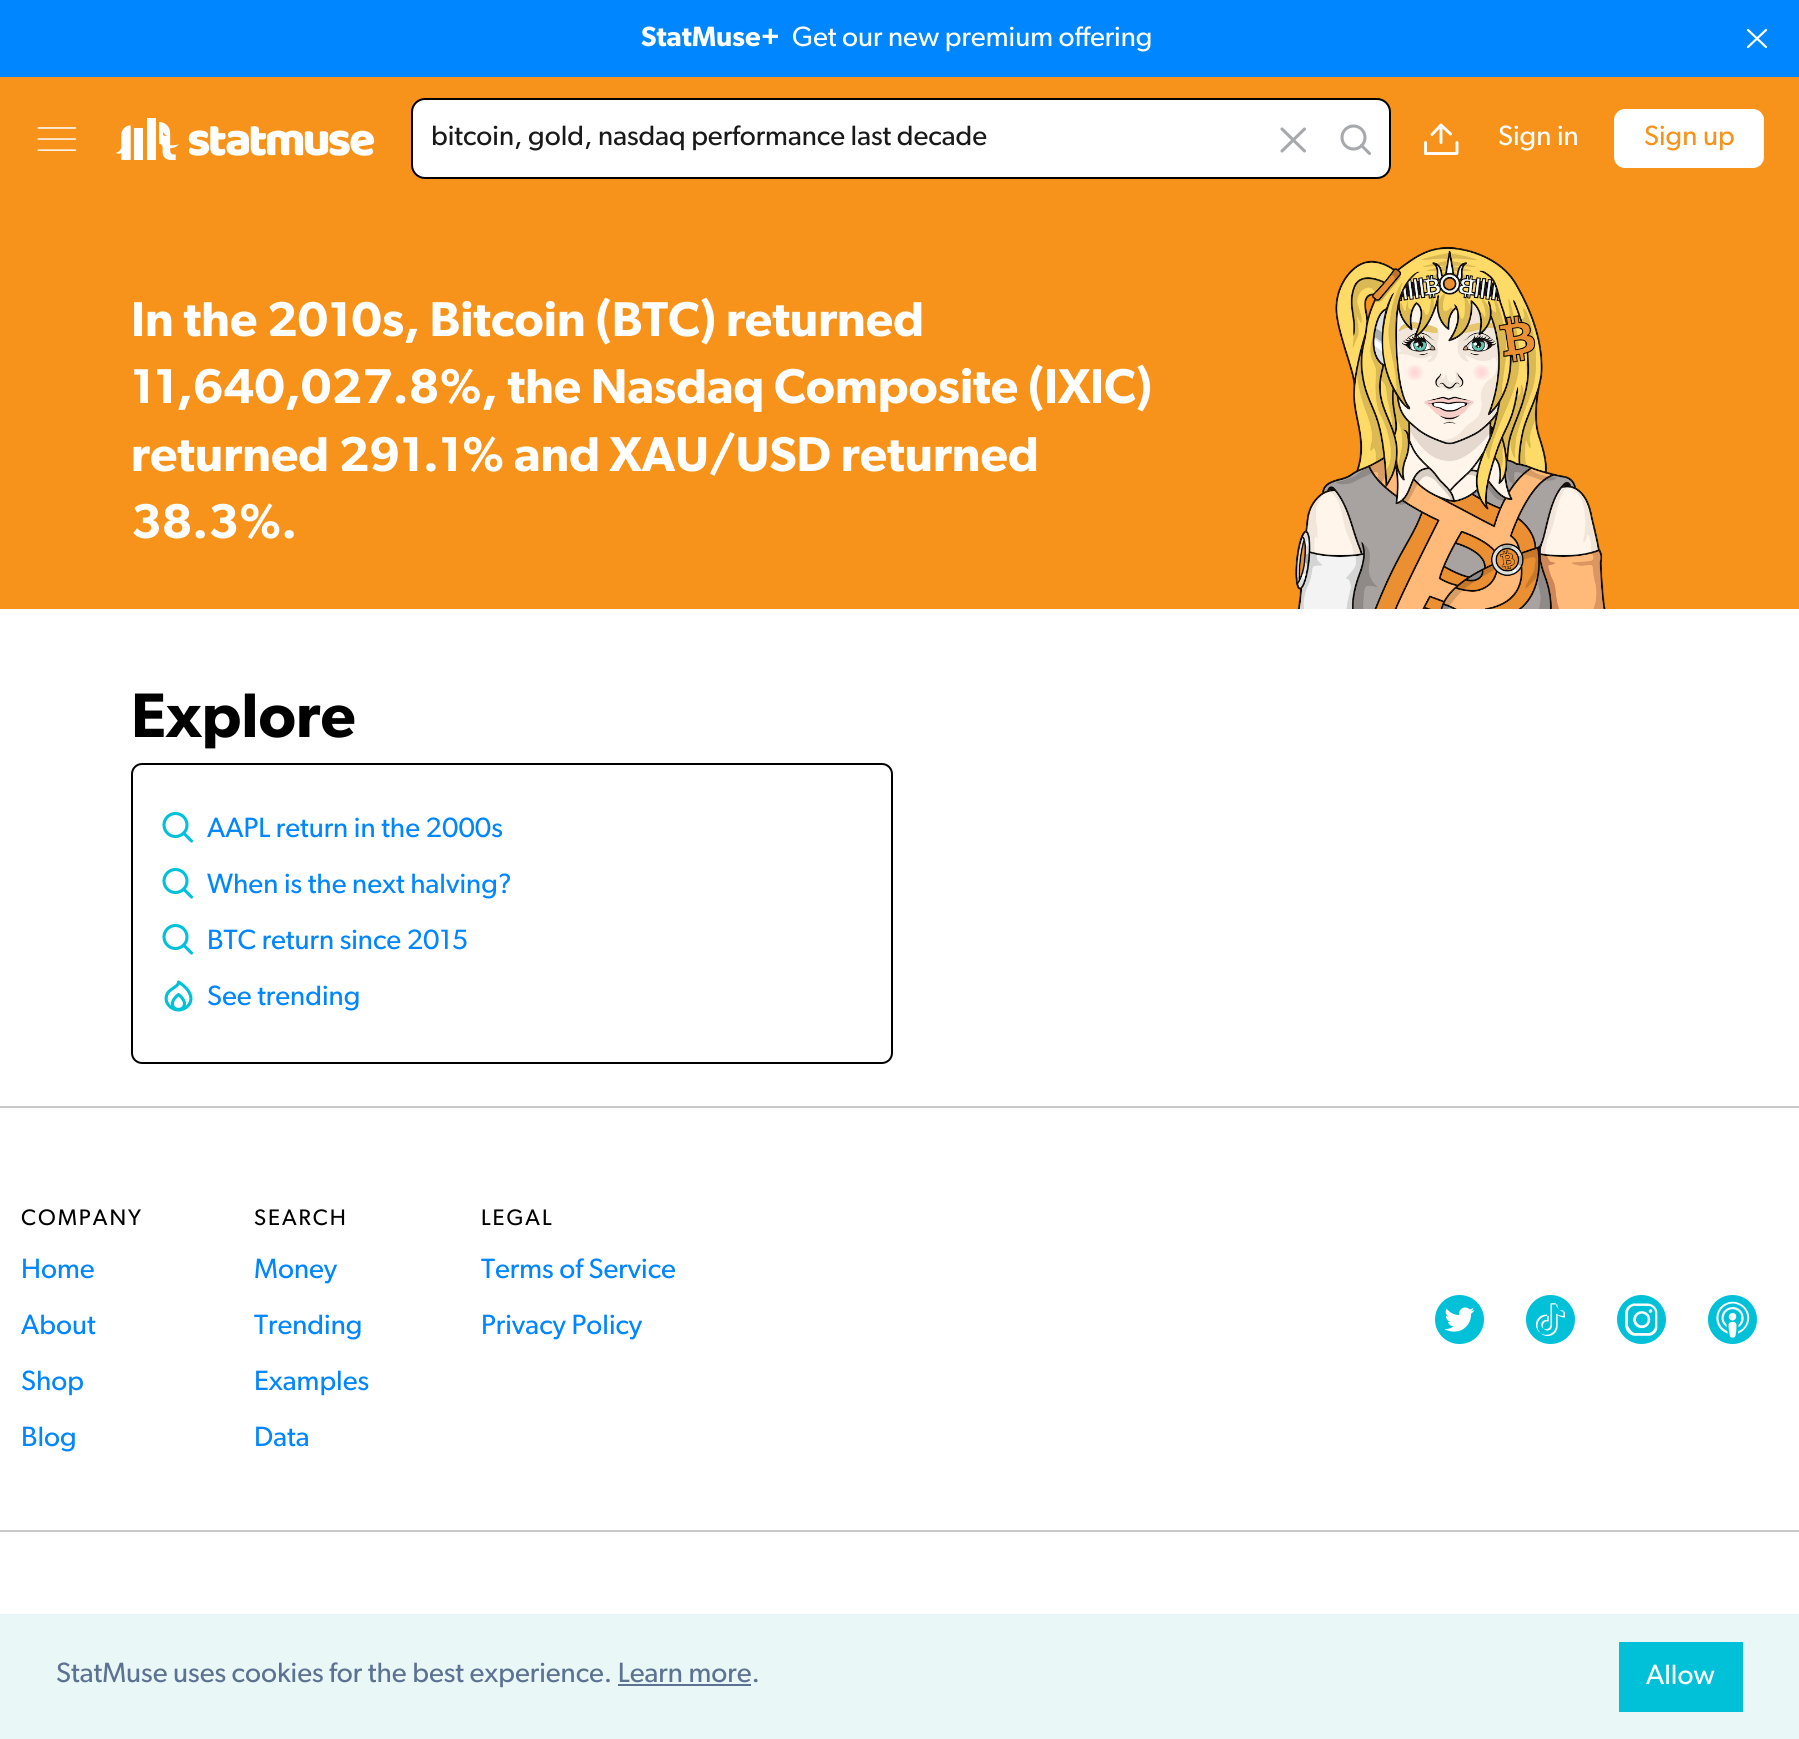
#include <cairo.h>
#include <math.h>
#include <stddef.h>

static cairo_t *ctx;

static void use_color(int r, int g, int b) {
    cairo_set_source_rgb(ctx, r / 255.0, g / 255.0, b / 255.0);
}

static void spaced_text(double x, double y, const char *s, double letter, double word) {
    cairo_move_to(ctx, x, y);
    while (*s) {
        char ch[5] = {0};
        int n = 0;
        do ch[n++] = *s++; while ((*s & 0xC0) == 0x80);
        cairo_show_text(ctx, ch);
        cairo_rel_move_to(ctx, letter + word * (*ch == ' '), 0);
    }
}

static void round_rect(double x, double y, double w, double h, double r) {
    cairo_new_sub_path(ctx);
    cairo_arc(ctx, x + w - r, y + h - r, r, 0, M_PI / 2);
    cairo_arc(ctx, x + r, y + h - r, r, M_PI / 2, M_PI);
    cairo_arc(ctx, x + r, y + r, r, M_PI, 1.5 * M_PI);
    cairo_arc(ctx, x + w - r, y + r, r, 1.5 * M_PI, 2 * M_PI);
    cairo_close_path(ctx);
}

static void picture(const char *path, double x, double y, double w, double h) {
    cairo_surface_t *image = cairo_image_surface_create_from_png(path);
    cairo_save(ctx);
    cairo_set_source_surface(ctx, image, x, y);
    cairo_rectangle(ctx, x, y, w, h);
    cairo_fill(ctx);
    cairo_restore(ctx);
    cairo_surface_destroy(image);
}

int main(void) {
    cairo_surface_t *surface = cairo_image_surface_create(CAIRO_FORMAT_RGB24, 1799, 1739);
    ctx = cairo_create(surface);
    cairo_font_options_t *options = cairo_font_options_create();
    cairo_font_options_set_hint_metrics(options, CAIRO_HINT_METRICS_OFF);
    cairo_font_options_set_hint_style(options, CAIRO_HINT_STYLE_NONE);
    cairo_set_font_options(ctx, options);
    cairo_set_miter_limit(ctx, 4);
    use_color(255, 255, 255);
    cairo_paint(ctx);
    use_color(0, 134, 255);
    cairo_rectangle(ctx, 0, 0, 1799, 77);
    cairo_fill(ctx);
    cairo_select_font_face(ctx, "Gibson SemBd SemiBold", CAIRO_FONT_SLANT_NORMAL, CAIRO_FONT_WEIGHT_NORMAL);
    cairo_set_font_size(ctx, 28);
    use_color(255, 255, 255);
    cairo_move_to(ctx, 641, 46);
    cairo_show_text(ctx, "StatMuse+");
    cairo_select_font_face(ctx, "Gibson", CAIRO_FONT_SLANT_NORMAL, CAIRO_FONT_WEIGHT_NORMAL);
    cairo_move_to(ctx, 792, 46);
    cairo_show_text(ctx, "Get our new premium offering");
    cairo_new_path(ctx);
    cairo_move_to(ctx, 1748, 47);
    cairo_line_to(ctx, 1766, 30);
    cairo_move_to(ctx, 1748, 30);
    cairo_line_to(ctx, 1766, 47);
    cairo_set_line_width(ctx, 2.2);
    cairo_set_line_cap(ctx, CAIRO_LINE_CAP_ROUND);
    cairo_set_line_join(ctx, CAIRO_LINE_JOIN_ROUND);
    cairo_stroke(ctx);
    use_color(247, 147, 26);
    cairo_rectangle(ctx, 0, 77, 1799, 532);
    cairo_fill(ctx);
    picture("img1.png", 37, 127, 40, 24);
    picture("img2.png", 116, 118, 259, 42);
    use_color(255, 255, 255);
    round_rect(412, 99, 978, 79, 13);
    cairo_fill_preserve(ctx);
    use_color(0, 0, 0);
    cairo_set_line_width(ctx, 2);
    cairo_set_line_cap(ctx, CAIRO_LINE_CAP_BUTT);
    cairo_set_line_join(ctx, CAIRO_LINE_JOIN_MITER);
    cairo_stroke(ctx);
    use_color(25, 25, 25);
    cairo_move_to(ctx, 431, 145);
    cairo_show_text(ctx, "bitcoin, gold, nasdaq performance last decade");
    cairo_new_path(ctx);
    cairo_move_to(ctx, 1282, 129);
    cairo_line_to(ctx, 1304.5, 151);
    cairo_move_to(ctx, 1304.5, 129);
    cairo_line_to(ctx, 1282, 151);
    use_color(167, 169, 172);
    cairo_set_line_width(ctx, 3.1);
    cairo_set_line_cap(ctx, CAIRO_LINE_CAP_ROUND);
    cairo_set_line_join(ctx, CAIRO_LINE_JOIN_ROUND);
    cairo_stroke(ctx);
    cairo_arc(ctx, 1353.5, 137.5, 11.5, 0, 2 * M_PI);
    cairo_set_line_cap(ctx, CAIRO_LINE_CAP_BUTT);
    cairo_set_line_join(ctx, CAIRO_LINE_JOIN_MITER);
    cairo_stroke(ctx);
    cairo_new_path(ctx);
    cairo_move_to(ctx, 1369.5, 153.5);
    cairo_line_to(ctx, 1361.5, 145.5);
    cairo_set_line_cap(ctx, CAIRO_LINE_CAP_ROUND);
    cairo_stroke(ctx);
    cairo_new_path(ctx);
    cairo_move_to(ctx, 1432, 134.5);
    cairo_line_to(ctx, 1441, 125);
    cairo_line_to(ctx, 1450.5, 134);
    cairo_move_to(ctx, 1441, 125);
    cairo_line_to(ctx, 1441, 142.5);
    cairo_move_to(ctx, 1425.5, 142.5);
    cairo_line_to(ctx, 1425.5, 153.5);
    cairo_line_to(ctx, 1457, 153.5);
    cairo_line_to(ctx, 1457, 142.5);
    use_color(255, 255, 255);
    cairo_set_line_width(ctx, 2.9);
    cairo_set_line_join(ctx, CAIRO_LINE_JOIN_ROUND);
    cairo_stroke(ctx);
    cairo_move_to(ctx, 1498, 145);
    cairo_show_text(ctx, "Sign in");
    round_rect(1615, 110, 148, 57, 10);
    cairo_fill_preserve(ctx);
    cairo_set_line_width(ctx, 2);
    cairo_set_line_cap(ctx, CAIRO_LINE_CAP_BUTT);
    cairo_set_line_join(ctx, CAIRO_LINE_JOIN_MITER);
    cairo_stroke(ctx);
    use_color(247, 147, 26);
    cairo_move_to(ctx, 1644, 145);
    cairo_show_text(ctx, "Sign up");
    cairo_select_font_face(ctx, "Gibson SemBd SemiBold", CAIRO_FONT_SLANT_NORMAL, CAIRO_FONT_WEIGHT_NORMAL);
    cairo_set_font_size(ctx, 49);
    use_color(255, 255, 255);
    cairo_move_to(ctx, 131, 336);
    cairo_show_text(ctx, "In the 2010s, Bitcoin (BTC) returned");
    cairo_move_to(ctx, 131, 403);
    cairo_show_text(ctx, "11,640,027.8%, the Nasdaq Composite (IXIC)");
    cairo_move_to(ctx, 131, 471);
    cairo_show_text(ctx, "returned 291.1% and XAU/USD returned");
    cairo_move_to(ctx, 131, 538);
    cairo_show_text(ctx, "38.3%.");
    picture("img3.png", 1295, 246, 311, 363);
    cairo_set_font_size(ctx, 63);
    use_color(0, 0, 0);
    cairo_move_to(ctx, 131, 737);
    cairo_show_text(ctx, "Explore");
    round_rect(132, 764, 760, 299, 10);
    cairo_stroke(ctx);
    cairo_arc(ctx, 175.5, 825, 11.5, 0, 2 * M_PI);
    use_color(0, 193, 216);
    cairo_set_line_width(ctx, 3.1);
    cairo_stroke(ctx);
    cairo_new_path(ctx);
    cairo_move_to(ctx, 191.5, 841);
    cairo_line_to(ctx, 183.5, 833);
    cairo_set_line_cap(ctx, CAIRO_LINE_CAP_ROUND);
    cairo_stroke(ctx);
    cairo_select_font_face(ctx, "Gibson", CAIRO_FONT_SLANT_NORMAL, CAIRO_FONT_WEIGHT_NORMAL);
    cairo_set_font_size(ctx, 28);
    use_color(0, 134, 255);
    cairo_move_to(ctx, 207, 837);
    cairo_show_text(ctx, "AAPL return in the 2000s");
    cairo_new_path(ctx);
    cairo_arc(ctx, 175.5, 881, 11.5, 0, 2 * M_PI);
    use_color(0, 193, 216);
    cairo_set_line_cap(ctx, CAIRO_LINE_CAP_BUTT);
    cairo_stroke(ctx);
    cairo_new_path(ctx);
    cairo_move_to(ctx, 191.5, 897);
    cairo_line_to(ctx, 183.5, 889);
    cairo_set_line_cap(ctx, CAIRO_LINE_CAP_ROUND);
    cairo_stroke(ctx);
    use_color(0, 134, 255);
    cairo_move_to(ctx, 207, 893);
    cairo_show_text(ctx, "When is the next halving?");
    cairo_new_path(ctx);
    cairo_arc(ctx, 175.5, 937, 11.5, 0, 2 * M_PI);
    use_color(0, 193, 216);
    cairo_set_line_cap(ctx, CAIRO_LINE_CAP_BUTT);
    cairo_stroke(ctx);
    cairo_new_path(ctx);
    cairo_move_to(ctx, 191.5, 953);
    cairo_line_to(ctx, 183.5, 945);
    cairo_set_line_cap(ctx, CAIRO_LINE_CAP_ROUND);
    cairo_stroke(ctx);
    use_color(0, 134, 255);
    cairo_move_to(ctx, 207, 949);
    cairo_show_text(ctx, "BTC return since 2015");
    cairo_new_path(ctx);
    cairo_move_to(ctx, 178.5, 1009.5);
    cairo_curve_to(ctx, 183.5, 1009.5, 189, 1003, 178.5, 994.5);
    cairo_curve_to(ctx, 168, 1003, 173, 1009.5, 178.5, 1009.5);
    cairo_close_path(ctx);
    cairo_move_to(ctx, 178.5, 982);
    cairo_curve_to(ctx, 178.5, 987.5, 168, 988.5, 166.5, 996);
    cairo_curve_to(ctx, 164.5, 1003.5, 171.5, 1010, 178.5, 1010);
    cairo_curve_to(ctx, 190, 1009.5, 199.5, 995.5, 178.5, 982);
    cairo_close_path(ctx);
    use_color(0, 193, 216);
    cairo_set_line_join(ctx, CAIRO_LINE_JOIN_ROUND);
    cairo_stroke(ctx);
    use_color(0, 134, 255);
    cairo_move_to(ctx, 207, 1005);
    cairo_show_text(ctx, "See trending");
    use_color(199, 200, 202);
    cairo_rectangle(ctx, 0, 1106, 1799, 2);
    cairo_fill(ctx);
    cairo_rectangle(ctx, 0, 1530, 1799, 2);
    cairo_fill(ctx);
    cairo_set_font_size(ctx, 22.5);
    use_color(0, 0, 0);
    spaced_text(21, 1225, "COMPANY", 2, 0);
    cairo_set_font_size(ctx, 28);
    use_color(0, 134, 255);
    cairo_move_to(ctx, 21, 1278);
    cairo_show_text(ctx, "Home");
    cairo_move_to(ctx, 21, 1334);
    cairo_show_text(ctx, "About");
    cairo_move_to(ctx, 21, 1390);
    cairo_show_text(ctx, "Shop");
    cairo_move_to(ctx, 21, 1446);
    cairo_show_text(ctx, "Blog");
    cairo_set_font_size(ctx, 22.5);
    use_color(0, 0, 0);
    spaced_text(254, 1225, "SEARCH", 2, 0);
    cairo_set_font_size(ctx, 28);
    use_color(0, 134, 255);
    cairo_move_to(ctx, 254, 1278);
    cairo_show_text(ctx, "Money");
    cairo_move_to(ctx, 254, 1334);
    cairo_show_text(ctx, "Trending");
    cairo_move_to(ctx, 254, 1390);
    cairo_show_text(ctx, "Examples");
    cairo_move_to(ctx, 254, 1446);
    cairo_show_text(ctx, "Data");
    cairo_set_font_size(ctx, 22.5);
    use_color(0, 0, 0);
    spaced_text(481, 1225, "LEGAL", 2, 0);
    cairo_set_font_size(ctx, 28);
    use_color(0, 134, 255);
    cairo_move_to(ctx, 481, 1278);
    cairo_show_text(ctx, "Terms of Service");
    cairo_move_to(ctx, 481, 1334);
    cairo_show_text(ctx, "Privacy Policy");
    picture("img4.png", 1435, 1295, 49, 49);
    picture("img5.png", 1526, 1295, 49, 49);
    picture("img6.png", 1617, 1295, 49, 49);
    picture("img7.png", 1708, 1295, 49, 49);
    use_color(234, 247, 247);
    cairo_rectangle(ctx, 0, 1614, 1799, 125);
    cairo_fill(ctx);
    use_color(92, 114, 145);
    cairo_move_to(ctx, 56, 1682);
    cairo_show_text(ctx, "StatMuse uses cookies for the best experience. Learn more.");
    cairo_rectangle(ctx, 618, 1684, 133, 2);
    cairo_fill(ctx);
    use_color(0, 193, 216);
    cairo_rectangle(ctx, 1619, 1642, 124, 70);
    cairo_fill(ctx);
    use_color(255, 255, 255);
    cairo_move_to(ctx, 1646, 1684);
    cairo_show_text(ctx, "Allow");
    cairo_surface_write_to_png(surface, "result.png");
    cairo_font_options_destroy(options);
    cairo_destroy(ctx);
    cairo_surface_destroy(surface);
    return 0;
}
